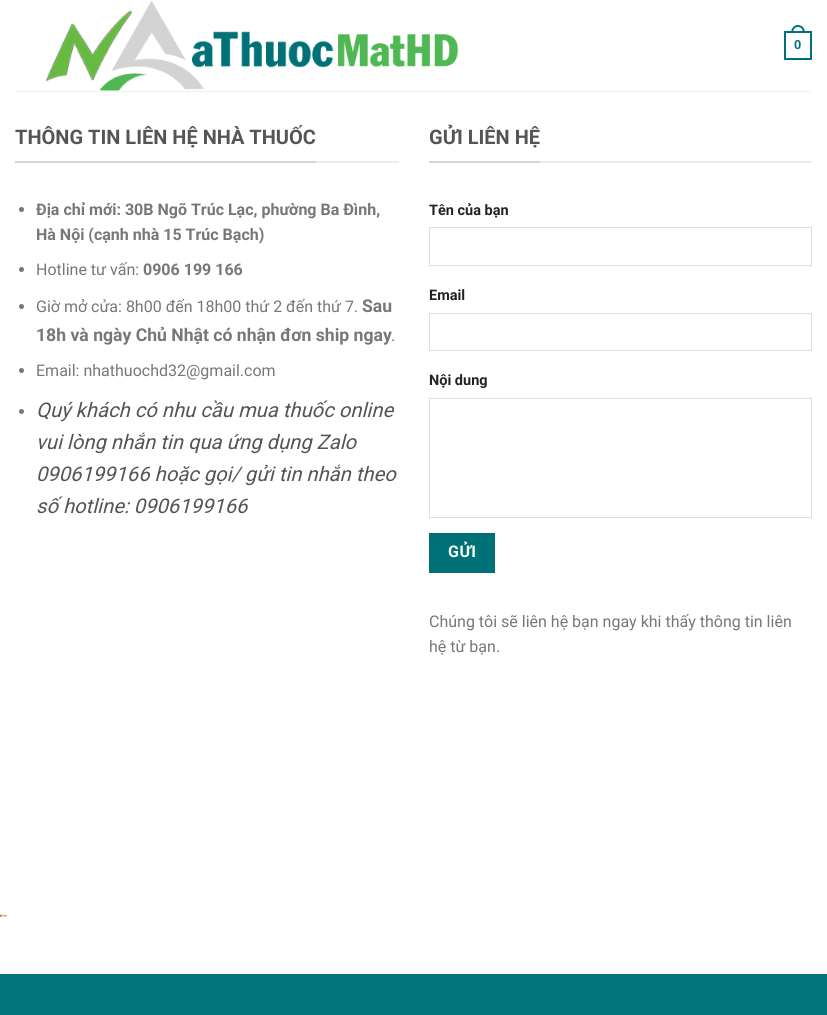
#include <cairo.h>
#include <math.h>
#include <stddef.h>

static cairo_t *ctx;

static void use_color(int r, int g, int b) {
    cairo_set_source_rgb(ctx, r / 255.0, g / 255.0, b / 255.0);
}

static void spaced_text(double x, double y, const char *s, double letter, double word) {
    cairo_move_to(ctx, x, y);
    while (*s) {
        char ch[5] = {0};
        int n = 0;
        do ch[n++] = *s++; while ((*s & 0xC0) == 0x80);
        cairo_show_text(ctx, ch);
        cairo_rel_move_to(ctx, letter + word * (*ch == ' '), 0);
    }
}

static void picture(const char *path, double x, double y, double w, double h) {
    cairo_surface_t *image = cairo_image_surface_create_from_png(path);
    cairo_save(ctx);
    cairo_set_source_surface(ctx, image, x, y);
    cairo_rectangle(ctx, x, y, w, h);
    cairo_fill(ctx);
    cairo_restore(ctx);
    cairo_surface_destroy(image);
}

int main(void) {
    cairo_surface_t *surface = cairo_image_surface_create(CAIRO_FORMAT_RGB24, 827, 1015);
    ctx = cairo_create(surface);
    cairo_font_options_t *options = cairo_font_options_create();
    cairo_font_options_set_hint_metrics(options, CAIRO_HINT_METRICS_OFF);
    cairo_font_options_set_hint_style(options, CAIRO_HINT_STYLE_NONE);
    cairo_set_font_options(ctx, options);
    cairo_set_miter_limit(ctx, 4);
    use_color(255, 255, 255);
    cairo_paint(ctx);
    picture("img1.png", 46, 1, 413, 90);
    cairo_rectangle(ctx, 785, 32, 26, 27);
    use_color(0, 114, 119);
    cairo_stroke(ctx);
    cairo_set_fill_rule(ctx, CAIRO_FILL_RULE_EVEN_ODD);
    cairo_new_path(ctx);
    cairo_move_to(ctx, 798, 25);
    cairo_curve_to(ctx, 802.5, 25, 805, 29, 805, 33);
    cairo_line_to(ctx, 791, 33);
    cairo_curve_to(ctx, 791, 29, 793.5, 25, 798, 25);
    cairo_close_path(ctx);
    cairo_move_to(ctx, 798, 27);
    cairo_curve_to(ctx, 801.5, 27, 803, 30, 803, 33);
    cairo_line_to(ctx, 793, 33);
    cairo_curve_to(ctx, 793, 30, 794.5, 27, 798, 27);
    cairo_close_path(ctx);
    cairo_fill(ctx);
    cairo_select_font_face(ctx, "Liberation Sans", CAIRO_FONT_SLANT_NORMAL, CAIRO_FONT_WEIGHT_BOLD);
    cairo_set_font_size(ctx, 13);
    cairo_move_to(ctx, 794, 49);
    cairo_show_text(ctx, "0");
    use_color(241, 241, 241);
    cairo_rectangle(ctx, 15, 91, 797, 1);
    cairo_fill(ctx);
    use_color(236, 236, 236);
    cairo_rectangle(ctx, 316, 161, 83, 2);
    cairo_fill(ctx);
    use_color(212, 212, 212);
    cairo_rectangle(ctx, 15, 161, 301, 2);
    cairo_fill(ctx);
    cairo_select_font_face(ctx, "Roboto", CAIRO_FONT_SLANT_NORMAL, CAIRO_FONT_WEIGHT_BOLD);
    cairo_set_font_size(ctx, 20);
    use_color(85, 85, 85);
    cairo_move_to(ctx, 15, 144);
    cairo_show_text(ctx, "THÔNG TIN LIÊN HỆ NHÀ THUỐC");
    use_color(119, 119, 119);
    cairo_new_path(ctx);
    cairo_arc(ctx, 21.5, 209.5, 2.5, 0, 2 * M_PI);
    cairo_fill(ctx);
    cairo_set_font_size(ctx, 16);
    cairo_move_to(ctx, 36, 215);
    cairo_show_text(ctx, "Địa chỉ mới: 30B Ngõ Trúc Lạc, phường Ba Đình,");
    cairo_move_to(ctx, 36, 240);
    cairo_show_text(ctx, "Hà Nội (cạnh nhà 15 Trúc Bạch)");
    cairo_new_path(ctx);
    cairo_arc(ctx, 21.5, 269.5, 2.5, 0, 2 * M_PI);
    cairo_fill(ctx);
    cairo_select_font_face(ctx, "Roboto", CAIRO_FONT_SLANT_NORMAL, CAIRO_FONT_WEIGHT_NORMAL);
    cairo_move_to(ctx, 36, 275);
    cairo_show_text(ctx, "Hotline tư vấn:");
    cairo_select_font_face(ctx, "Roboto", CAIRO_FONT_SLANT_NORMAL, CAIRO_FONT_WEIGHT_BOLD);
    cairo_move_to(ctx, 143, 275);
    cairo_show_text(ctx, "0906 199 166");
    cairo_new_path(ctx);
    cairo_arc(ctx, 21.5, 306.5, 2.5, 0, 2 * M_PI);
    cairo_fill(ctx);
    cairo_select_font_face(ctx, "Roboto", CAIRO_FONT_SLANT_NORMAL, CAIRO_FONT_WEIGHT_NORMAL);
    cairo_move_to(ctx, 36, 312);
    cairo_show_text(ctx, "Giờ mở cửa: 8h00 đến 18h00 thứ 2 đến thứ 7.");
    cairo_select_font_face(ctx, "Roboto", CAIRO_FONT_SLANT_NORMAL, CAIRO_FONT_WEIGHT_BOLD);
    cairo_set_font_size(ctx, 17.6);
    cairo_move_to(ctx, 362, 312);
    cairo_show_text(ctx, "Sau");
    cairo_move_to(ctx, 36, 341);
    cairo_show_text(ctx, "18h và ngày Chủ Nhật có nhận đơn ship ngay");
    cairo_select_font_face(ctx, "Roboto", CAIRO_FONT_SLANT_NORMAL, CAIRO_FONT_WEIGHT_NORMAL);
    cairo_set_font_size(ctx, 16);
    cairo_move_to(ctx, 391, 341);
    cairo_show_text(ctx, ".");
    cairo_new_path(ctx);
    cairo_arc(ctx, 21.5, 370.5, 2.5, 0, 2 * M_PI);
    cairo_fill(ctx);
    cairo_move_to(ctx, 36, 376);
    cairo_show_text(ctx, "Email: nhathuochd32@gmail.com");
    cairo_new_path(ctx);
    cairo_arc(ctx, 21.5, 411.5, 2.5, 0, 2 * M_PI);
    cairo_fill(ctx);
    cairo_select_font_face(ctx, "Roboto", CAIRO_FONT_SLANT_ITALIC, CAIRO_FONT_WEIGHT_NORMAL);
    cairo_set_font_size(ctx, 20.2);
    use_color(85, 85, 85);
    cairo_move_to(ctx, 36, 417);
    cairo_show_text(ctx, "Quý khách có nhu cầu mua thuốc online");
    cairo_move_to(ctx, 36, 449);
    cairo_show_text(ctx, "vui lòng nhắn tin qua ứng dụng Zalo");
    cairo_move_to(ctx, 36, 481);
    cairo_show_text(ctx, "0906199166 hoặc gọi/ gửi tin nhắn theo");
    cairo_move_to(ctx, 36, 513);
    cairo_show_text(ctx, "số hotline: 0906199166");
    use_color(236, 236, 236);
    cairo_rectangle(ctx, 540, 161, 272, 2);
    cairo_fill(ctx);
    use_color(212, 212, 212);
    cairo_rectangle(ctx, 429, 161, 111, 2);
    cairo_fill(ctx);
    cairo_select_font_face(ctx, "Roboto", CAIRO_FONT_SLANT_NORMAL, CAIRO_FONT_WEIGHT_BOLD);
    cairo_set_font_size(ctx, 20);
    use_color(85, 85, 85);
    cairo_move_to(ctx, 429, 144);
    cairo_show_text(ctx, "GỬI LIÊN HỆ");
    cairo_set_font_size(ctx, 14.5);
    use_color(34, 34, 34);
    cairo_move_to(ctx, 429, 215);
    cairo_show_text(ctx, "Tên của bạn");
    cairo_rectangle(ctx, 429.5, 227.5, 382, 38);
    use_color(221, 221, 221);
    cairo_set_line_width(ctx, 1);
    cairo_stroke(ctx);
    use_color(34, 34, 34);
    cairo_move_to(ctx, 429, 300);
    cairo_show_text(ctx, "Email");
    cairo_rectangle(ctx, 429.5, 313.5, 382, 37);
    use_color(221, 221, 221);
    cairo_stroke(ctx);
    use_color(34, 34, 34);
    cairo_move_to(ctx, 429, 385);
    cairo_show_text(ctx, "Nội dung");
    cairo_rectangle(ctx, 429.5, 398.5, 382, 119);
    use_color(221, 221, 221);
    cairo_stroke(ctx);
    use_color(0, 114, 119);
    cairo_rectangle(ctx, 429.5, 533.5, 65, 39);
    cairo_fill_preserve(ctx);
    use_color(0, 108, 113);
    cairo_stroke(ctx);
    cairo_set_font_size(ctx, 16);
    use_color(255, 255, 255);
    spaced_text(448, 557, "GỬI", 0.5, 0);
    cairo_select_font_face(ctx, "Roboto", CAIRO_FONT_SLANT_NORMAL, CAIRO_FONT_WEIGHT_NORMAL);
    use_color(119, 119, 119);
    cairo_move_to(ctx, 429, 627);
    cairo_show_text(ctx, "Chúng tôi sẽ liên hệ bạn ngay khi thấy thông tin liên");
    cairo_move_to(ctx, 429, 652);
    cairo_show_text(ctx, "hệ từ bạn.");
    picture("img2.png", 0, 914, 7, 3);
    use_color(1, 116, 121);
    cairo_rectangle(ctx, 0, 975, 827, 40);
    cairo_fill(ctx);
    use_color(1, 110, 115);
    cairo_rectangle(ctx, 0, 974, 827, 1);
    cairo_fill(ctx);
    cairo_surface_write_to_png(surface, "result.png");
    cairo_font_options_destroy(options);
    cairo_destroy(ctx);
    cairo_surface_destroy(surface);
    return 0;
}
